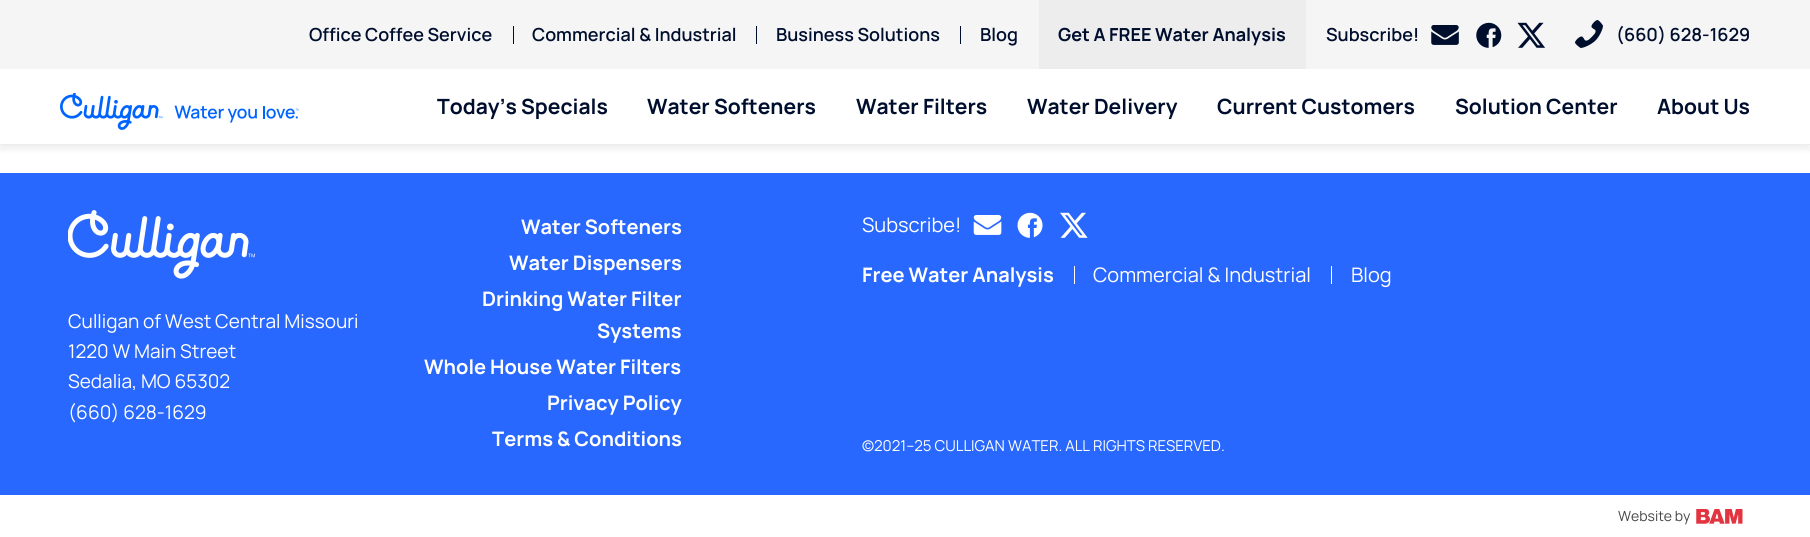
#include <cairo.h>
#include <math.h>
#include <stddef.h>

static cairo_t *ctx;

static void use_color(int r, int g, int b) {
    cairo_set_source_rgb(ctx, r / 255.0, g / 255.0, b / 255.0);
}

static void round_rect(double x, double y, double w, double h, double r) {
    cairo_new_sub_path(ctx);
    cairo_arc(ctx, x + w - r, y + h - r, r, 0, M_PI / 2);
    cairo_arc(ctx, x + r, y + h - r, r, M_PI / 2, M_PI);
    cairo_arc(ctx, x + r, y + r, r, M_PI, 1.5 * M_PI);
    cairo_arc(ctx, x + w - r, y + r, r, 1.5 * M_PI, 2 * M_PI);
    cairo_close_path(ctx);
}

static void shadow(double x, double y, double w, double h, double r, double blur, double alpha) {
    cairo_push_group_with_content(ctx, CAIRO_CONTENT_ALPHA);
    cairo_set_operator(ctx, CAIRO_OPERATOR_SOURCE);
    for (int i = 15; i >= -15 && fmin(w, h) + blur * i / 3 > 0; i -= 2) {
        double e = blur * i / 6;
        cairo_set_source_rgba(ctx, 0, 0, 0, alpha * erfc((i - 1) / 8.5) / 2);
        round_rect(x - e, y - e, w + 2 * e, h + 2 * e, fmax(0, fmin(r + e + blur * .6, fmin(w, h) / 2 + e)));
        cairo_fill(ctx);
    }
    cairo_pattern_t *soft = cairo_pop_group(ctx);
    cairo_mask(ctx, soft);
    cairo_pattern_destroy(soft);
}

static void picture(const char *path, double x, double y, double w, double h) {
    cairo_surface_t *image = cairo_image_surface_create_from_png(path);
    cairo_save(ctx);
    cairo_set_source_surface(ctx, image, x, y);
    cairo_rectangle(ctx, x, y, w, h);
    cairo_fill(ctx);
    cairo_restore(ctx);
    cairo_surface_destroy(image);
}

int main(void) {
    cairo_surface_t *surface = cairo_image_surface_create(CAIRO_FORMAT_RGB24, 1810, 537);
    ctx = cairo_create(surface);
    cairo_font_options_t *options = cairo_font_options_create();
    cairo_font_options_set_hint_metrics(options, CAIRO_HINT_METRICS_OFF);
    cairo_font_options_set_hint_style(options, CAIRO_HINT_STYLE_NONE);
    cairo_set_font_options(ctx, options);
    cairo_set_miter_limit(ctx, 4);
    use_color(255, 255, 255);
    cairo_paint(ctx);
    use_color(99, 99, 99);
    shadow(0, 5, 1810, 145, 0, 2.5, 0.1);
    use_color(255, 255, 255);
    cairo_rectangle(ctx, 0, 69, 1810, 75);
    cairo_fill(ctx);
    use_color(237, 237, 237);
    cairo_rectangle(ctx, 0, 144, 1810, 1);
    cairo_fill(ctx);
    use_color(245, 245, 245);
    cairo_rectangle(ctx, 0, 0, 1810, 69);
    cairo_fill(ctx);
    cairo_select_font_face(ctx, "Manrope SemiBold", CAIRO_FONT_SLANT_NORMAL, CAIRO_FONT_WEIGHT_NORMAL);
    cairo_set_font_size(ctx, 18);
    use_color(0, 14, 46);
    cairo_move_to(ctx, 309, 41);
    cairo_show_text(ctx, "Office Coffee Service");
    cairo_rectangle(ctx, 513, 26, 1, 18);
    cairo_fill(ctx);
    cairo_move_to(ctx, 532, 41);
    cairo_show_text(ctx, "Commercial & Industrial");
    cairo_rectangle(ctx, 756, 26, 1, 18);
    cairo_fill(ctx);
    cairo_move_to(ctx, 776, 41);
    cairo_show_text(ctx, "Business Solutions");
    cairo_rectangle(ctx, 960, 26, 1, 18);
    cairo_fill(ctx);
    cairo_move_to(ctx, 980, 41);
    cairo_show_text(ctx, "Blog");
    use_color(237, 237, 237);
    cairo_rectangle(ctx, 1039, 0, 267, 69);
    cairo_fill(ctx);
    cairo_select_font_face(ctx, "Manrope", CAIRO_FONT_SLANT_NORMAL, CAIRO_FONT_WEIGHT_BOLD);
    use_color(0, 14, 46);
    cairo_move_to(ctx, 1058, 41);
    cairo_show_text(ctx, "Get A FREE Water Analysis");
    cairo_select_font_face(ctx, "Manrope SemiBold", CAIRO_FONT_SLANT_NORMAL, CAIRO_FONT_WEIGHT_NORMAL);
    cairo_move_to(ctx, 1326, 41);
    cairo_show_text(ctx, "Subscribe!");
    picture("img1.png", 1431, 25, 28, 20);
    picture("img2.png", 1476, 22, 26, 26);
    picture("img3.png", 1517, 22, 28, 26);
    picture("img4.png", 1575, 20, 28, 28);
    cairo_move_to(ctx, 1616, 41);
    cairo_show_text(ctx, "(660) 628-1629");
    picture("img5.png", 60, 93, 239, 37);
    cairo_select_font_face(ctx, "Manrope", CAIRO_FONT_SLANT_NORMAL, CAIRO_FONT_WEIGHT_BOLD);
    cairo_set_font_size(ctx, 21);
    cairo_move_to(ctx, 437, 114);
    cairo_show_text(ctx, "Today’s Specials");
    cairo_move_to(ctx, 647, 114);
    cairo_show_text(ctx, "Water Softeners");
    cairo_move_to(ctx, 856, 114);
    cairo_show_text(ctx, "Water Filters");
    cairo_move_to(ctx, 1027, 114);
    cairo_show_text(ctx, "Water Delivery");
    cairo_move_to(ctx, 1217, 114);
    cairo_show_text(ctx, "Current Customers");
    cairo_move_to(ctx, 1455, 114);
    cairo_show_text(ctx, "Solution Center");
    cairo_move_to(ctx, 1657, 114);
    cairo_show_text(ctx, "About Us");
    use_color(41, 104, 254);
    cairo_rectangle(ctx, 0, 173, 1810, 322);
    cairo_fill(ctx);
    picture("img6.png", 68, 210, 187, 69);
    cairo_select_font_face(ctx, "Manrope", CAIRO_FONT_SLANT_NORMAL, CAIRO_FONT_WEIGHT_NORMAL);
    cairo_set_font_size(ctx, 19);
    use_color(255, 255, 255);
    cairo_move_to(ctx, 68, 328);
    cairo_show_text(ctx, "Culligan of West Central Missouri");
    cairo_move_to(ctx, 68, 358);
    cairo_show_text(ctx, "1220 W Main Street");
    cairo_move_to(ctx, 68, 388);
    cairo_show_text(ctx, "Sedalia, MO 65302");
    cairo_move_to(ctx, 68, 419);
    cairo_show_text(ctx, "(660) 628-1629");
    cairo_select_font_face(ctx, "Manrope", CAIRO_FONT_SLANT_NORMAL, CAIRO_FONT_WEIGHT_BOLD);
    cairo_set_font_size(ctx, 20);
    cairo_move_to(ctx, 521, 234);
    cairo_show_text(ctx, "Water Softeners");
    cairo_move_to(ctx, 509, 270);
    cairo_show_text(ctx, "Water Dispensers");
    cairo_move_to(ctx, 482, 306);
    cairo_show_text(ctx, "Drinking Water Filter");
    cairo_move_to(ctx, 597, 338);
    cairo_show_text(ctx, "Systems");
    cairo_move_to(ctx, 424, 374);
    cairo_show_text(ctx, "Whole House Water Filters");
    cairo_move_to(ctx, 547, 410);
    cairo_show_text(ctx, "Privacy Policy");
    cairo_move_to(ctx, 492, 446);
    cairo_show_text(ctx, "Terms & Conditions");
    cairo_select_font_face(ctx, "Manrope", CAIRO_FONT_SLANT_NORMAL, CAIRO_FONT_WEIGHT_NORMAL);
    cairo_move_to(ctx, 862, 232);
    cairo_show_text(ctx, "Subscribe!");
    picture("img7.png", 973, 215, 29, 20);
    picture("img8.png", 1017, 212, 26, 26);
    picture("img9.png", 1060, 212, 28, 26);
    cairo_select_font_face(ctx, "Manrope", CAIRO_FONT_SLANT_NORMAL, CAIRO_FONT_WEIGHT_BOLD);
    cairo_move_to(ctx, 862, 282);
    cairo_show_text(ctx, "Free Water Analysis");
    cairo_rectangle(ctx, 1074, 266, 1, 18);
    cairo_fill(ctx);
    cairo_select_font_face(ctx, "Manrope", CAIRO_FONT_SLANT_NORMAL, CAIRO_FONT_WEIGHT_NORMAL);
    cairo_move_to(ctx, 1093, 282);
    cairo_show_text(ctx, "Commercial & Industrial");
    cairo_rectangle(ctx, 1331, 266, 1, 18);
    cairo_fill(ctx);
    cairo_move_to(ctx, 1351, 282);
    cairo_show_text(ctx, "Blog");
    cairo_set_font_size(ctx, 15);
    cairo_move_to(ctx, 862, 451);
    cairo_show_text(ctx, "©2021–25 CULLIGAN WATER. ALL RIGHTS RESERVED.");
    cairo_set_font_size(ctx, 14);
    use_color(70, 70, 70);
    cairo_move_to(ctx, 1618, 521);
    cairo_show_text(ctx, "Website by");
    picture("img10.png", 1696, 509, 47, 15);
    cairo_surface_write_to_png(surface, "result.png");
    cairo_font_options_destroy(options);
    cairo_destroy(ctx);
    cairo_surface_destroy(surface);
    return 0;
}
